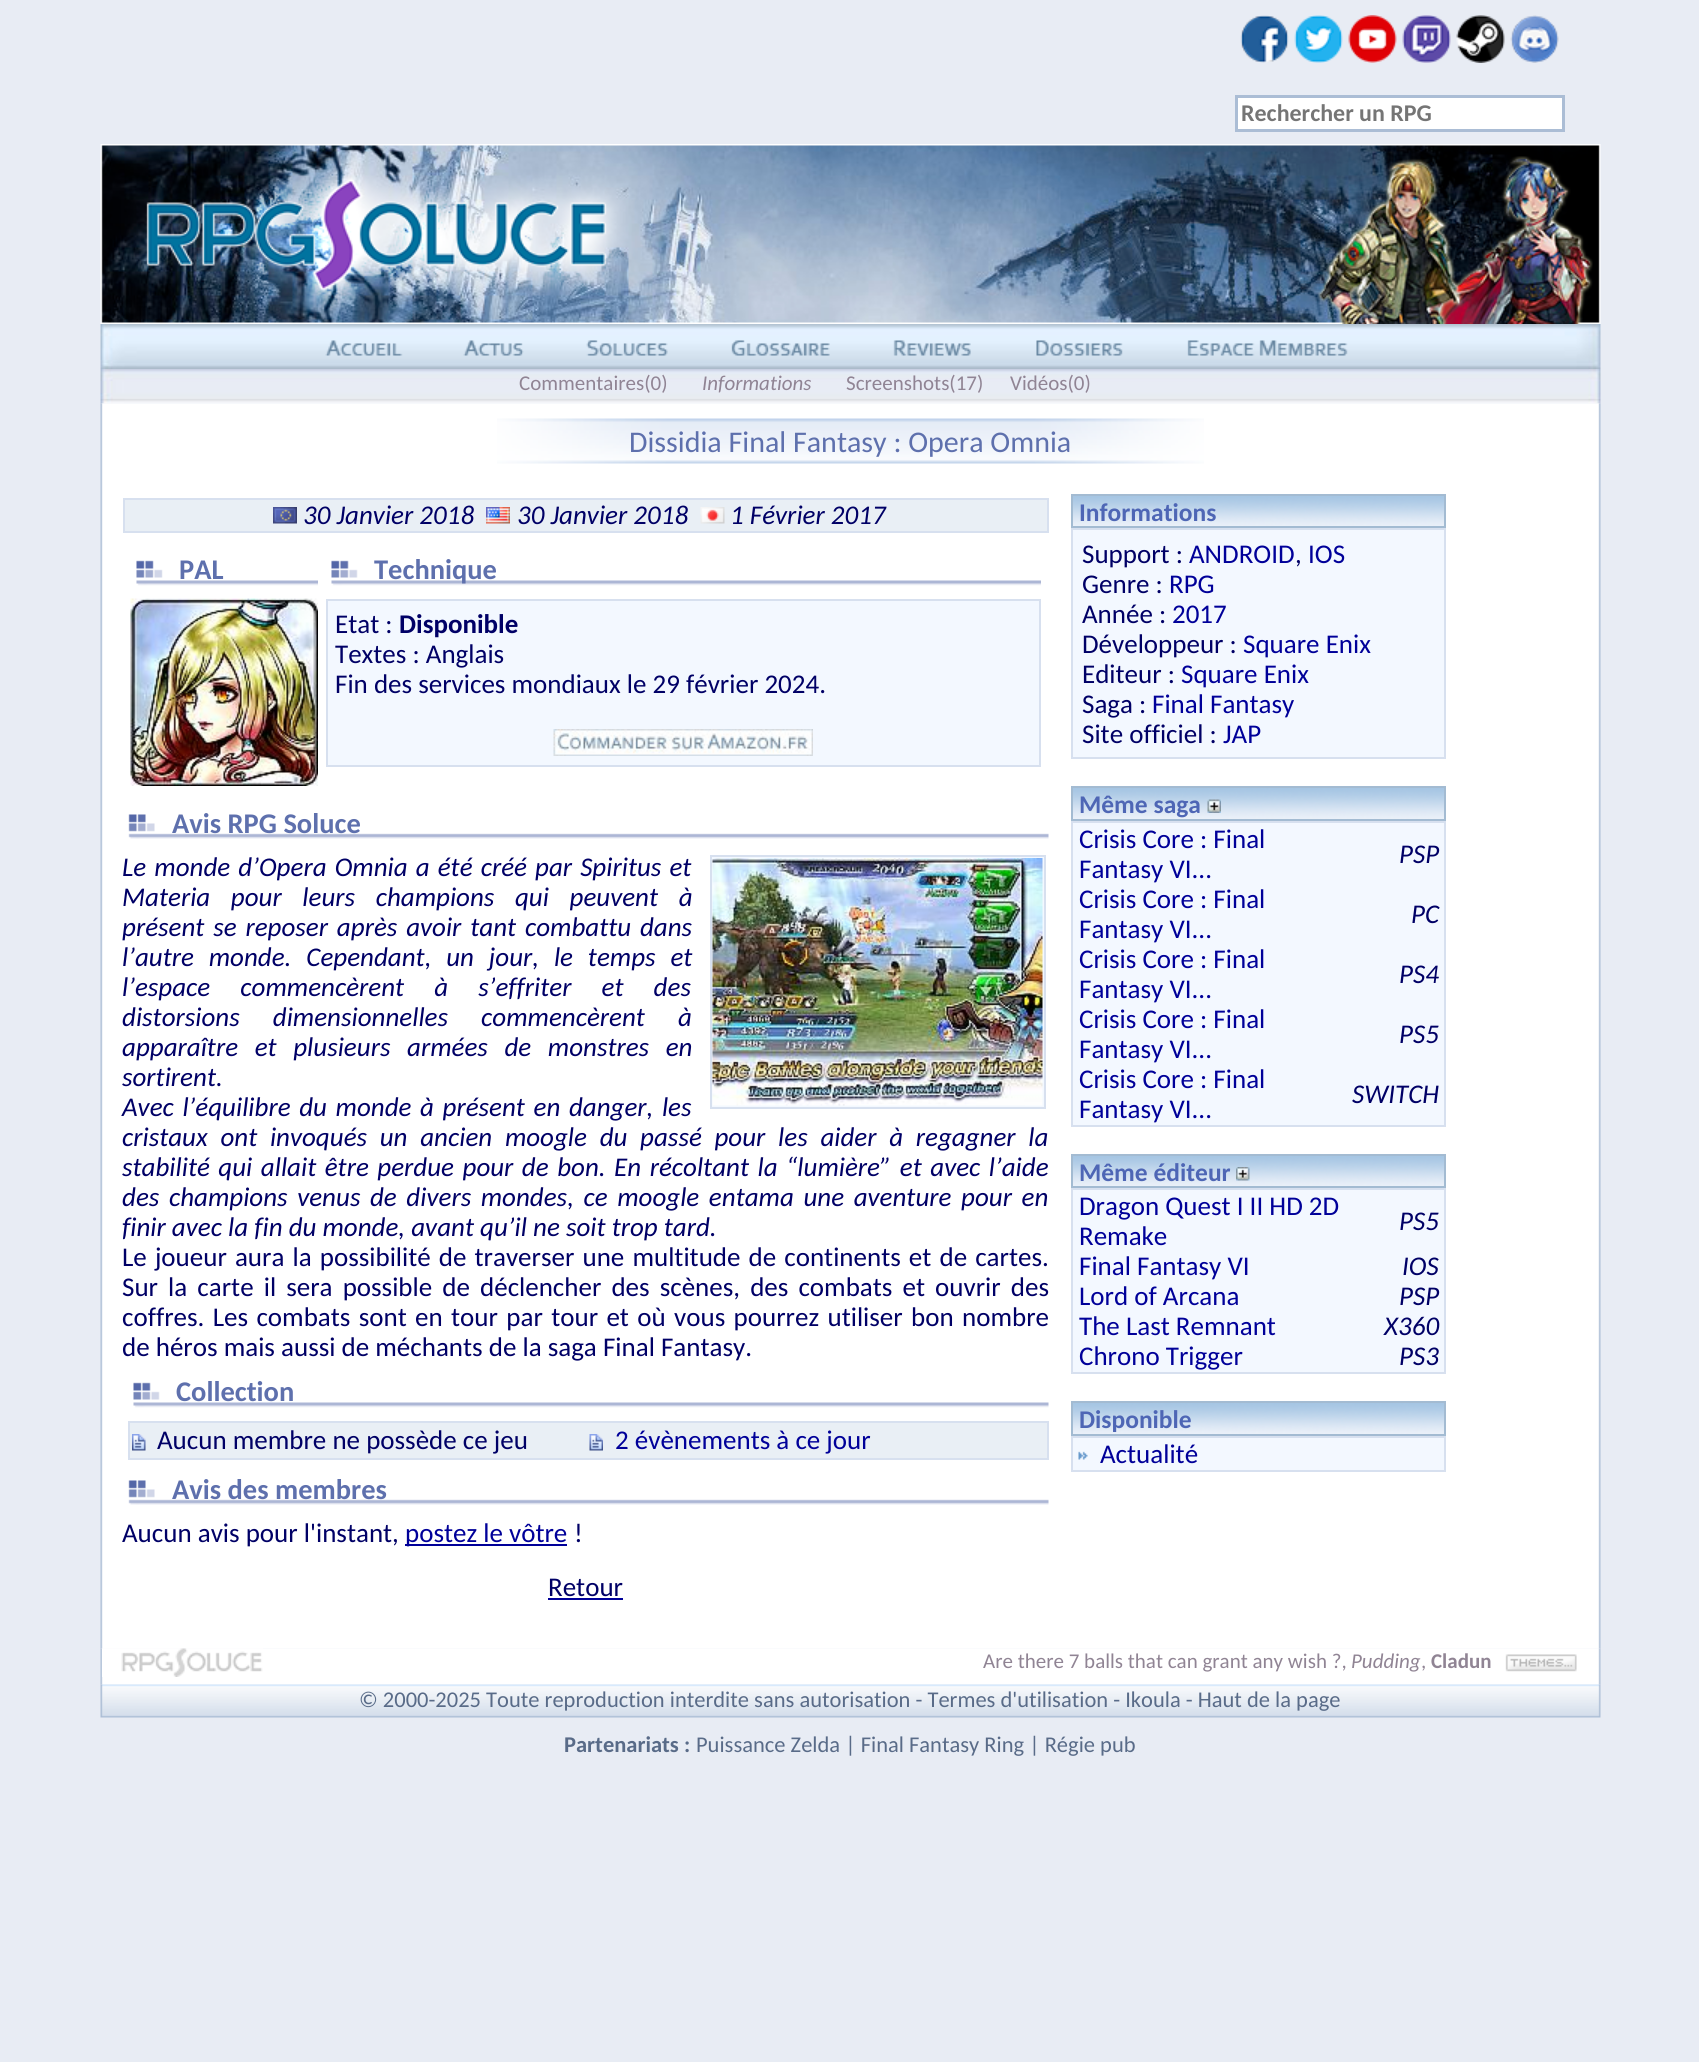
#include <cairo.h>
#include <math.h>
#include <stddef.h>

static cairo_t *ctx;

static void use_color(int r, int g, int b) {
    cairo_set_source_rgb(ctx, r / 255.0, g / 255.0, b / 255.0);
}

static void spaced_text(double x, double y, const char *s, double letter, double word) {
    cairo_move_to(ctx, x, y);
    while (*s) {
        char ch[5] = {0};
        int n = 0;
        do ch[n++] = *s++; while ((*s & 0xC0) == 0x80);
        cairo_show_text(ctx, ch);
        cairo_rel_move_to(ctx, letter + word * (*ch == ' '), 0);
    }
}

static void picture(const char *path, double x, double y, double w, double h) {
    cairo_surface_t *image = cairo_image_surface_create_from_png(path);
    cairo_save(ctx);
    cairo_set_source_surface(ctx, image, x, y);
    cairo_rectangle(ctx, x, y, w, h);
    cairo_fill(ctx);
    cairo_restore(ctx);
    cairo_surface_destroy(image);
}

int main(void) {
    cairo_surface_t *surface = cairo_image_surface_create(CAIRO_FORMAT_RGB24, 1699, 2062);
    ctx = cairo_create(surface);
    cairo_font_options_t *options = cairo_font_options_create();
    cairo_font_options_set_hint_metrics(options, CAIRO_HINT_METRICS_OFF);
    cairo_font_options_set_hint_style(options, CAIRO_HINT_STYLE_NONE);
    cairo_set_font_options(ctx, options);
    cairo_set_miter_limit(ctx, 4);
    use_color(232, 236, 244);
    cairo_paint(ctx);
    picture("img1.png", 1240, 15, 49, 48);
    picture("img2.png", 1294, 15, 49, 48);
    picture("img3.png", 1348, 15, 49, 48);
    picture("img4.png", 1402, 15, 49, 48);
    picture("img5.png", 1456, 15, 49, 48);
    picture("img6.png", 1510, 15, 49, 48);
    use_color(255, 255, 255);
    cairo_rectangle(ctx, 1236.5, 96.5, 327, 34);
    cairo_fill_preserve(ctx);
    use_color(171, 189, 213);
    cairo_set_line_width(ctx, 3);
    cairo_stroke(ctx);
    cairo_select_font_face(ctx, "Carlito", CAIRO_FONT_SLANT_NORMAL, CAIRO_FONT_WEIGHT_BOLD);
    cairo_set_font_size(ctx, 24);
    use_color(117, 117, 117);
    cairo_move_to(ctx, 1241, 121);
    cairo_show_text(ctx, "Rechercher un RPG");
    picture("img7.png", 100, 144, 1501, 180);
    picture("img8.png", 1317, 156, 276, 168);
    picture("img9.png", 100, 324, 1501, 45);
    picture("img10.png", 325, 340, 78, 16);
    picture("img11.png", 463, 340, 61, 16);
    picture("img12.png", 586, 340, 82, 16);
    picture("img13.png", 731, 340, 99, 16);
    picture("img14.png", 893, 340, 78, 16);
    picture("img15.png", 1036, 340, 87, 16);
    picture("img16.png", 1187, 340, 161, 16);
    picture("img17.png", 100, 369, 1501, 35);
    cairo_select_font_face(ctx, "Carlito", CAIRO_FONT_SLANT_NORMAL, CAIRO_FONT_WEIGHT_NORMAL);
    cairo_set_font_size(ctx, 21);
    use_color(144, 132, 148);
    cairo_move_to(ctx, 519, 390);
    cairo_show_text(ctx, "Commentaires(0)");
    cairo_select_font_face(ctx, "Carlito", CAIRO_FONT_SLANT_ITALIC, CAIRO_FONT_WEIGHT_NORMAL);
    cairo_move_to(ctx, 702, 390);
    cairo_show_text(ctx, "Informations");
    cairo_select_font_face(ctx, "Carlito", CAIRO_FONT_SLANT_NORMAL, CAIRO_FONT_WEIGHT_NORMAL);
    cairo_move_to(ctx, 846, 390);
    cairo_show_text(ctx, "Screenshots(17)");
    cairo_move_to(ctx, 1010, 390);
    cairo_show_text(ctx, "Vidéos(0)");
    picture("img18.png", 100, 403, 1501, 1246);
    picture("img19.png", 497, 418, 707, 46);
    cairo_set_font_size(ctx, 30);
    use_color(94, 112, 173);
    cairo_move_to(ctx, 629, 452);
    cairo_show_text(ctx, "Dissidia Final Fantasy : Opera Omnia");
    use_color(233, 239, 245);
    cairo_rectangle(ctx, 124, 499, 924, 33);
    cairo_fill_preserve(ctx);
    use_color(215, 224, 239);
    cairo_set_line_width(ctx, 2);
    cairo_stroke(ctx);
    picture("img20.png", 273, 507, 24, 17);
    cairo_select_font_face(ctx, "Carlito", CAIRO_FONT_SLANT_ITALIC, CAIRO_FONT_WEIGHT_NORMAL);
    cairo_set_font_size(ctx, 27);
    use_color(0, 0, 102);
    cairo_move_to(ctx, 303, 524);
    cairo_show_text(ctx, "30 Janvier 2018");
    picture("img21.png", 486, 507, 24, 17);
    cairo_move_to(ctx, 517, 524);
    cairo_show_text(ctx, "30 Janvier 2018");
    picture("img22.png", 700, 507, 25, 17);
    cairo_move_to(ctx, 730, 524);
    cairo_show_text(ctx, "1 Février 2017");
    picture("img23.png", 136, 560, 182, 26);
    cairo_select_font_face(ctx, "Carlito", CAIRO_FONT_SLANT_NORMAL, CAIRO_FONT_WEIGHT_BOLD);
    cairo_set_font_size(ctx, 28.5);
    use_color(94, 112, 173);
    cairo_move_to(ctx, 179, 579);
    cairo_show_text(ctx, "PAL");
    picture("img24.png", 130, 598, 188, 188);
    picture("img25.png", 331, 560, 710, 26);
    cairo_move_to(ctx, 374, 579);
    cairo_show_text(ctx, "Technique");
    use_color(243, 248, 255);
    cairo_rectangle(ctx, 327, 600, 713, 166);
    cairo_fill_preserve(ctx);
    use_color(215, 224, 239);
    cairo_stroke(ctx);
    cairo_select_font_face(ctx, "Carlito", CAIRO_FONT_SLANT_NORMAL, CAIRO_FONT_WEIGHT_NORMAL);
    cairo_set_font_size(ctx, 27);
    use_color(0, 0, 102);
    cairo_move_to(ctx, 335, 633);
    cairo_show_text(ctx, "Etat :");
    cairo_select_font_face(ctx, "Carlito", CAIRO_FONT_SLANT_NORMAL, CAIRO_FONT_WEIGHT_BOLD);
    cairo_move_to(ctx, 399, 633);
    cairo_show_text(ctx, "Disponible");
    cairo_select_font_face(ctx, "Carlito", CAIRO_FONT_SLANT_NORMAL, CAIRO_FONT_WEIGHT_NORMAL);
    cairo_move_to(ctx, 335, 663);
    cairo_show_text(ctx, "Textes : Anglais");
    cairo_move_to(ctx, 335, 693);
    cairo_show_text(ctx, "Fin des services mondiaux le 29 février 2024.");
    picture("img26.png", 553, 729, 260, 27);
    picture("img27.png", 128, 814, 921, 25);
    cairo_select_font_face(ctx, "Carlito", CAIRO_FONT_SLANT_NORMAL, CAIRO_FONT_WEIGHT_BOLD);
    cairo_set_font_size(ctx, 28.5);
    use_color(94, 112, 173);
    cairo_move_to(ctx, 172, 833);
    cairo_show_text(ctx, "Avis RPG Soluce");
    cairo_select_font_face(ctx, "Carlito", CAIRO_FONT_SLANT_ITALIC, CAIRO_FONT_WEIGHT_NORMAL);
    cairo_set_font_size(ctx, 27);
    use_color(0, 0, 102);
    spaced_text(122, 876, "Le monde d’Opera Omnia a été créé par Spiritus et", 0, 2);
    use_color(243, 248, 255);
    cairo_rectangle(ctx, 711, 856, 334, 252);
    cairo_fill_preserve(ctx);
    use_color(215, 224, 239);
    cairo_stroke(ctx);
    picture("img28.png", 712, 858, 331, 248);
    use_color(0, 0, 102);
    spaced_text(122, 906, "Materia pour leurs champions qui peuvent à", 0, 14.5);
    spaced_text(122, 936, "présent se reposer après avoir tant combattu dans", 0, 2.75);
    spaced_text(122, 966, "l’autre monde. Cependant, un jour, le temps et", 0, 8.75);
    spaced_text(122, 996, "l’espace commencèrent à s’effriter et des", 0, 24);
    spaced_text(122, 1026, "distorsions dimensionnelles commencèrent à", 0, 27);
    spaced_text(122, 1056, "apparaître et plusieurs armées de monstres en", 0, 10.5);
    cairo_move_to(ctx, 122, 1086);
    cairo_show_text(ctx, "sortirent.");
    spaced_text(122, 1116, "Avec l’équilibre du monde à présent en danger, les", 0, 2.5);
    spaced_text(122, 1146, "cristaux ont invoqués un ancien moogle du passé pour les aider à regagner la", 0, 6.6);
    spaced_text(122, 1176, "stabilité qui allait être perdue pour de bon. En récoltant la “lumière” et avec l’aide", 0, 2.4);
    spaced_text(122, 1206, "des champions venus de divers mondes, ce moogle entama une aventure pour en", 0, 3.5);
    cairo_move_to(ctx, 122, 1236);
    cairo_show_text(ctx, "finir avec la fin du monde, avant qu’il ne soit trop tard.");
    cairo_select_font_face(ctx, "Carlito", CAIRO_FONT_SLANT_NORMAL, CAIRO_FONT_WEIGHT_NORMAL);
    spaced_text(122, 1266, "Le joueur aura la possibilité de traverser une multitude de continents et de cartes.", 0, 2);
    spaced_text(122, 1296, "Sur la carte il sera possible de déclencher des scènes, des combats et ouvrir des", 0, 4);
    spaced_text(122, 1326, "coffres. Les combats sont en tour par tour et où vous pourrez utiliser bon nombre", 0, 2.25);
    cairo_move_to(ctx, 122, 1356);
    cairo_show_text(ctx, "de héros mais aussi de méchants de la saga Final Fantasy.");
    picture("img29.png", 133, 1382, 916, 26);
    cairo_select_font_face(ctx, "Carlito", CAIRO_FONT_SLANT_NORMAL, CAIRO_FONT_WEIGHT_BOLD);
    cairo_set_font_size(ctx, 28.5);
    use_color(94, 112, 173);
    cairo_move_to(ctx, 176, 1401);
    cairo_show_text(ctx, "Collection");
    use_color(233, 239, 245);
    cairo_rectangle(ctx, 129, 1422, 919, 37);
    cairo_fill_preserve(ctx);
    use_color(215, 224, 239);
    cairo_stroke(ctx);
    picture("img30.png", 132, 1434, 14, 17);
    cairo_select_font_face(ctx, "Carlito", CAIRO_FONT_SLANT_NORMAL, CAIRO_FONT_WEIGHT_NORMAL);
    cairo_set_font_size(ctx, 27);
    use_color(0, 0, 102);
    cairo_move_to(ctx, 157, 1449);
    cairo_show_text(ctx, "Aucun membre ne possède ce jeu");
    picture("img31.png", 589, 1434, 14, 17);
    use_color(0, 0, 153);
    cairo_move_to(ctx, 615, 1449);
    cairo_show_text(ctx, "2 évènements à ce jour");
    picture("img27.png", 128, 1480, 921, 25);
    cairo_select_font_face(ctx, "Carlito", CAIRO_FONT_SLANT_NORMAL, CAIRO_FONT_WEIGHT_BOLD);
    cairo_set_font_size(ctx, 28.5);
    use_color(94, 112, 173);
    cairo_move_to(ctx, 172, 1499);
    cairo_show_text(ctx, "Avis des membres");
    cairo_select_font_face(ctx, "Carlito", CAIRO_FONT_SLANT_NORMAL, CAIRO_FONT_WEIGHT_NORMAL);
    cairo_set_font_size(ctx, 27);
    use_color(0, 0, 102);
    cairo_move_to(ctx, 122, 1542);
    cairo_show_text(ctx, "Aucun avis pour l'instant,");
    use_color(0, 0, 153);
    cairo_rectangle(ctx, 405, 1544, 162, 2);
    cairo_fill(ctx);
    cairo_move_to(ctx, 405, 1542);
    cairo_show_text(ctx, "postez le vôtre");
    use_color(0, 0, 102);
    cairo_move_to(ctx, 574, 1542);
    cairo_show_text(ctx, "!");
    cairo_move_to(ctx, 548, 1596);
    cairo_show_text(ctx, "Retour");
    use_color(0, 0, 153);
    cairo_rectangle(ctx, 548, 1598, 75, 2);
    cairo_fill(ctx);
    picture("img32.png", 1073, 496, 371, 30);
    cairo_rectangle(ctx, 1072, 495, 373, 32);
    use_color(163, 187, 210);
    cairo_stroke(ctx);
    cairo_select_font_face(ctx, "Carlito", CAIRO_FONT_SLANT_NORMAL, CAIRO_FONT_WEIGHT_BOLD);
    cairo_set_font_size(ctx, 25.5);
    use_color(78, 102, 181);
    cairo_move_to(ctx, 1079, 521);
    cairo_show_text(ctx, "Informations");
    use_color(243, 248, 255);
    cairo_rectangle(ctx, 1072, 529, 373, 229);
    cairo_fill_preserve(ctx);
    use_color(215, 224, 239);
    cairo_stroke(ctx);
    cairo_select_font_face(ctx, "Carlito", CAIRO_FONT_SLANT_NORMAL, CAIRO_FONT_WEIGHT_NORMAL);
    cairo_set_font_size(ctx, 27);
    use_color(0, 0, 102);
    cairo_move_to(ctx, 1082, 563);
    cairo_show_text(ctx, "Support :");
    use_color(0, 0, 153);
    cairo_move_to(ctx, 1189, 563);
    cairo_show_text(ctx, "ANDROID");
    use_color(0, 0, 102);
    cairo_move_to(ctx, 1295, 563);
    cairo_show_text(ctx, ",");
    use_color(0, 0, 153);
    cairo_move_to(ctx, 1308, 563);
    cairo_show_text(ctx, "IOS");
    use_color(0, 0, 102);
    cairo_move_to(ctx, 1082, 593);
    cairo_show_text(ctx, "Genre :");
    use_color(0, 0, 153);
    cairo_move_to(ctx, 1169, 593);
    cairo_show_text(ctx, "RPG");
    use_color(0, 0, 102);
    cairo_move_to(ctx, 1082, 623);
    cairo_show_text(ctx, "Année :");
    use_color(0, 0, 153);
    cairo_move_to(ctx, 1172, 623);
    cairo_show_text(ctx, "2017");
    use_color(0, 0, 102);
    cairo_move_to(ctx, 1082, 653);
    cairo_show_text(ctx, "Développeur :");
    use_color(0, 0, 153);
    cairo_move_to(ctx, 1243, 653);
    cairo_show_text(ctx, "Square Enix");
    use_color(0, 0, 102);
    cairo_move_to(ctx, 1082, 683);
    cairo_show_text(ctx, "Editeur :");
    use_color(0, 0, 153);
    cairo_move_to(ctx, 1181, 683);
    cairo_show_text(ctx, "Square Enix");
    use_color(0, 0, 102);
    cairo_move_to(ctx, 1082, 713);
    cairo_show_text(ctx, "Saga :");
    use_color(0, 0, 153);
    cairo_move_to(ctx, 1152, 713);
    cairo_show_text(ctx, "Final Fantasy");
    use_color(0, 0, 102);
    cairo_move_to(ctx, 1082, 743);
    cairo_show_text(ctx, "Site officiel :");
    use_color(0, 0, 153);
    cairo_move_to(ctx, 1223, 743);
    cairo_show_text(ctx, "JAP");
    picture("img33.png", 1073, 788, 371, 31);
    cairo_rectangle(ctx, 1072, 787, 373, 33);
    use_color(163, 187, 210);
    cairo_stroke(ctx);
    cairo_select_font_face(ctx, "Carlito", CAIRO_FONT_SLANT_NORMAL, CAIRO_FONT_WEIGHT_BOLD);
    cairo_set_font_size(ctx, 25.5);
    use_color(78, 102, 181);
    cairo_move_to(ctx, 1079, 813);
    cairo_show_text(ctx, "Même saga");
    picture("img34.png", 1207, 799, 14, 14);
    use_color(243, 248, 255);
    cairo_rectangle(ctx, 1072, 822, 373, 304);
    cairo_fill_preserve(ctx);
    use_color(215, 224, 239);
    cairo_stroke(ctx);
    cairo_select_font_face(ctx, "Carlito", CAIRO_FONT_SLANT_NORMAL, CAIRO_FONT_WEIGHT_NORMAL);
    cairo_set_font_size(ctx, 27);
    use_color(0, 0, 153);
    cairo_move_to(ctx, 1079, 848);
    cairo_show_text(ctx, "Crisis Core : Final");
    cairo_move_to(ctx, 1079, 878);
    cairo_show_text(ctx, "Fantasy VI...");
    cairo_select_font_face(ctx, "Carlito", CAIRO_FONT_SLANT_ITALIC, CAIRO_FONT_WEIGHT_NORMAL);
    use_color(0, 0, 102);
    cairo_move_to(ctx, 1399, 863);
    cairo_show_text(ctx, "PSP");
    cairo_select_font_face(ctx, "Carlito", CAIRO_FONT_SLANT_NORMAL, CAIRO_FONT_WEIGHT_NORMAL);
    use_color(0, 0, 153);
    cairo_move_to(ctx, 1079, 908);
    cairo_show_text(ctx, "Crisis Core : Final");
    cairo_move_to(ctx, 1079, 938);
    cairo_show_text(ctx, "Fantasy VI...");
    cairo_select_font_face(ctx, "Carlito", CAIRO_FONT_SLANT_ITALIC, CAIRO_FONT_WEIGHT_NORMAL);
    use_color(0, 0, 102);
    cairo_move_to(ctx, 1411, 923);
    cairo_show_text(ctx, "PC");
    cairo_select_font_face(ctx, "Carlito", CAIRO_FONT_SLANT_NORMAL, CAIRO_FONT_WEIGHT_NORMAL);
    use_color(0, 0, 153);
    cairo_move_to(ctx, 1079, 968);
    cairo_show_text(ctx, "Crisis Core : Final");
    cairo_move_to(ctx, 1079, 998);
    cairo_show_text(ctx, "Fantasy VI...");
    cairo_select_font_face(ctx, "Carlito", CAIRO_FONT_SLANT_ITALIC, CAIRO_FONT_WEIGHT_NORMAL);
    use_color(0, 0, 102);
    cairo_move_to(ctx, 1399, 983);
    cairo_show_text(ctx, "PS4");
    cairo_select_font_face(ctx, "Carlito", CAIRO_FONT_SLANT_NORMAL, CAIRO_FONT_WEIGHT_NORMAL);
    use_color(0, 0, 153);
    cairo_move_to(ctx, 1079, 1028);
    cairo_show_text(ctx, "Crisis Core : Final");
    cairo_move_to(ctx, 1079, 1058);
    cairo_show_text(ctx, "Fantasy VI...");
    cairo_select_font_face(ctx, "Carlito", CAIRO_FONT_SLANT_ITALIC, CAIRO_FONT_WEIGHT_NORMAL);
    use_color(0, 0, 102);
    cairo_move_to(ctx, 1399, 1043);
    cairo_show_text(ctx, "PS5");
    cairo_select_font_face(ctx, "Carlito", CAIRO_FONT_SLANT_NORMAL, CAIRO_FONT_WEIGHT_NORMAL);
    use_color(0, 0, 153);
    cairo_move_to(ctx, 1079, 1088);
    cairo_show_text(ctx, "Crisis Core : Final");
    cairo_move_to(ctx, 1079, 1118);
    cairo_show_text(ctx, "Fantasy VI...");
    cairo_select_font_face(ctx, "Carlito", CAIRO_FONT_SLANT_ITALIC, CAIRO_FONT_WEIGHT_NORMAL);
    use_color(0, 0, 102);
    cairo_move_to(ctx, 1352, 1103);
    cairo_show_text(ctx, "SWITCH");
    picture("img35.png", 1073, 1156, 371, 30);
    cairo_rectangle(ctx, 1072, 1155, 373, 32);
    use_color(163, 187, 210);
    cairo_stroke(ctx);
    cairo_select_font_face(ctx, "Carlito", CAIRO_FONT_SLANT_NORMAL, CAIRO_FONT_WEIGHT_BOLD);
    cairo_set_font_size(ctx, 25.5);
    use_color(78, 102, 181);
    cairo_move_to(ctx, 1079, 1181);
    cairo_show_text(ctx, "Même éditeur");
    picture("img36.png", 1236, 1167, 14, 14);
    use_color(243, 248, 255);
    cairo_rectangle(ctx, 1072, 1189, 373, 184);
    cairo_fill_preserve(ctx);
    use_color(215, 224, 239);
    cairo_stroke(ctx);
    cairo_select_font_face(ctx, "Carlito", CAIRO_FONT_SLANT_NORMAL, CAIRO_FONT_WEIGHT_NORMAL);
    cairo_set_font_size(ctx, 27);
    use_color(0, 0, 153);
    cairo_move_to(ctx, 1079, 1215);
    cairo_show_text(ctx, "Dragon Quest I II HD 2D");
    cairo_move_to(ctx, 1079, 1245);
    cairo_show_text(ctx, "Remake");
    cairo_select_font_face(ctx, "Carlito", CAIRO_FONT_SLANT_ITALIC, CAIRO_FONT_WEIGHT_NORMAL);
    use_color(0, 0, 102);
    cairo_move_to(ctx, 1399, 1230);
    cairo_show_text(ctx, "PS5");
    cairo_select_font_face(ctx, "Carlito", CAIRO_FONT_SLANT_NORMAL, CAIRO_FONT_WEIGHT_NORMAL);
    use_color(0, 0, 153);
    cairo_move_to(ctx, 1079, 1275);
    cairo_show_text(ctx, "Final Fantasy VI");
    cairo_select_font_face(ctx, "Carlito", CAIRO_FONT_SLANT_ITALIC, CAIRO_FONT_WEIGHT_NORMAL);
    use_color(0, 0, 102);
    cairo_move_to(ctx, 1402, 1275);
    cairo_show_text(ctx, "IOS");
    cairo_select_font_face(ctx, "Carlito", CAIRO_FONT_SLANT_NORMAL, CAIRO_FONT_WEIGHT_NORMAL);
    use_color(0, 0, 153);
    cairo_move_to(ctx, 1079, 1305);
    cairo_show_text(ctx, "Lord of Arcana");
    cairo_select_font_face(ctx, "Carlito", CAIRO_FONT_SLANT_ITALIC, CAIRO_FONT_WEIGHT_NORMAL);
    use_color(0, 0, 102);
    cairo_move_to(ctx, 1399, 1305);
    cairo_show_text(ctx, "PSP");
    cairo_select_font_face(ctx, "Carlito", CAIRO_FONT_SLANT_NORMAL, CAIRO_FONT_WEIGHT_NORMAL);
    use_color(0, 0, 153);
    cairo_move_to(ctx, 1079, 1335);
    cairo_show_text(ctx, "The Last Remnant");
    cairo_select_font_face(ctx, "Carlito", CAIRO_FONT_SLANT_ITALIC, CAIRO_FONT_WEIGHT_NORMAL);
    use_color(0, 0, 102);
    cairo_move_to(ctx, 1384, 1335);
    cairo_show_text(ctx, "X360");
    cairo_select_font_face(ctx, "Carlito", CAIRO_FONT_SLANT_NORMAL, CAIRO_FONT_WEIGHT_NORMAL);
    use_color(0, 0, 153);
    cairo_move_to(ctx, 1079, 1365);
    cairo_show_text(ctx, "Chrono Trigger");
    cairo_select_font_face(ctx, "Carlito", CAIRO_FONT_SLANT_ITALIC, CAIRO_FONT_WEIGHT_NORMAL);
    use_color(0, 0, 102);
    cairo_move_to(ctx, 1399, 1365);
    cairo_show_text(ctx, "PS3");
    picture("img37.png", 1073, 1403, 371, 31);
    cairo_rectangle(ctx, 1072, 1402, 373, 33);
    use_color(163, 187, 210);
    cairo_stroke(ctx);
    cairo_select_font_face(ctx, "Carlito", CAIRO_FONT_SLANT_NORMAL, CAIRO_FONT_WEIGHT_BOLD);
    cairo_set_font_size(ctx, 25.5);
    use_color(78, 102, 181);
    cairo_move_to(ctx, 1079, 1428);
    cairo_show_text(ctx, "Disponible");
    use_color(243, 248, 255);
    cairo_rectangle(ctx, 1072, 1437, 373, 34);
    cairo_fill_preserve(ctx);
    use_color(215, 224, 239);
    cairo_stroke(ctx);
    picture("img38.png", 1078, 1451, 10, 9);
    cairo_select_font_face(ctx, "Carlito", CAIRO_FONT_SLANT_NORMAL, CAIRO_FONT_WEIGHT_NORMAL);
    cairo_set_font_size(ctx, 27);
    use_color(0, 0, 153);
    cairo_move_to(ctx, 1100, 1463);
    cairo_show_text(ctx, "Actualité");
    picture("img39.png", 100, 1648, 1501, 37);
    picture("img40.png", 102, 1648, 161, 29);
    cairo_set_font_size(ctx, 21);
    use_color(144, 132, 148);
    cairo_move_to(ctx, 983, 1668);
    cairo_show_text(ctx, "Are there 7 balls that can grant any wish ?,");
    cairo_select_font_face(ctx, "Carlito", CAIRO_FONT_SLANT_ITALIC, CAIRO_FONT_WEIGHT_NORMAL);
    cairo_move_to(ctx, 1351, 1668);
    cairo_show_text(ctx, "Pudding");
    cairo_select_font_face(ctx, "Carlito", CAIRO_FONT_SLANT_NORMAL, CAIRO_FONT_WEIGHT_NORMAL);
    cairo_move_to(ctx, 1421, 1668);
    cairo_show_text(ctx, ",");
    cairo_select_font_face(ctx, "Carlito", CAIRO_FONT_SLANT_NORMAL, CAIRO_FONT_WEIGHT_BOLD);
    cairo_move_to(ctx, 1431, 1668);
    cairo_show_text(ctx, "Cladun");
    picture("img41.png", 1505, 1654, 72, 18);
    picture("img42.png", 100, 1684, 1501, 34);
    cairo_select_font_face(ctx, "Carlito", CAIRO_FONT_SLANT_NORMAL, CAIRO_FONT_WEIGHT_NORMAL);
    cairo_set_font_size(ctx, 22.5);
    use_color(89, 107, 136);
    cairo_move_to(ctx, 359, 1707);
    cairo_show_text(ctx, "© 2000-2025 Toute reproduction interdite sans autorisation - Termes d'utilisation - Ikoula - Haut de la page");
    cairo_select_font_face(ctx, "Carlito", CAIRO_FONT_SLANT_NORMAL, CAIRO_FONT_WEIGHT_BOLD);
    cairo_move_to(ctx, 564, 1752);
    cairo_show_text(ctx, "Partenariats :");
    cairo_select_font_face(ctx, "Carlito", CAIRO_FONT_SLANT_NORMAL, CAIRO_FONT_WEIGHT_NORMAL);
    cairo_move_to(ctx, 696, 1752);
    cairo_show_text(ctx, "Puissance Zelda | Final Fantasy Ring | Régie pub");
    cairo_surface_write_to_png(surface, "result.png");
    cairo_font_options_destroy(options);
    cairo_destroy(ctx);
    cairo_surface_destroy(surface);
    return 0;
}
